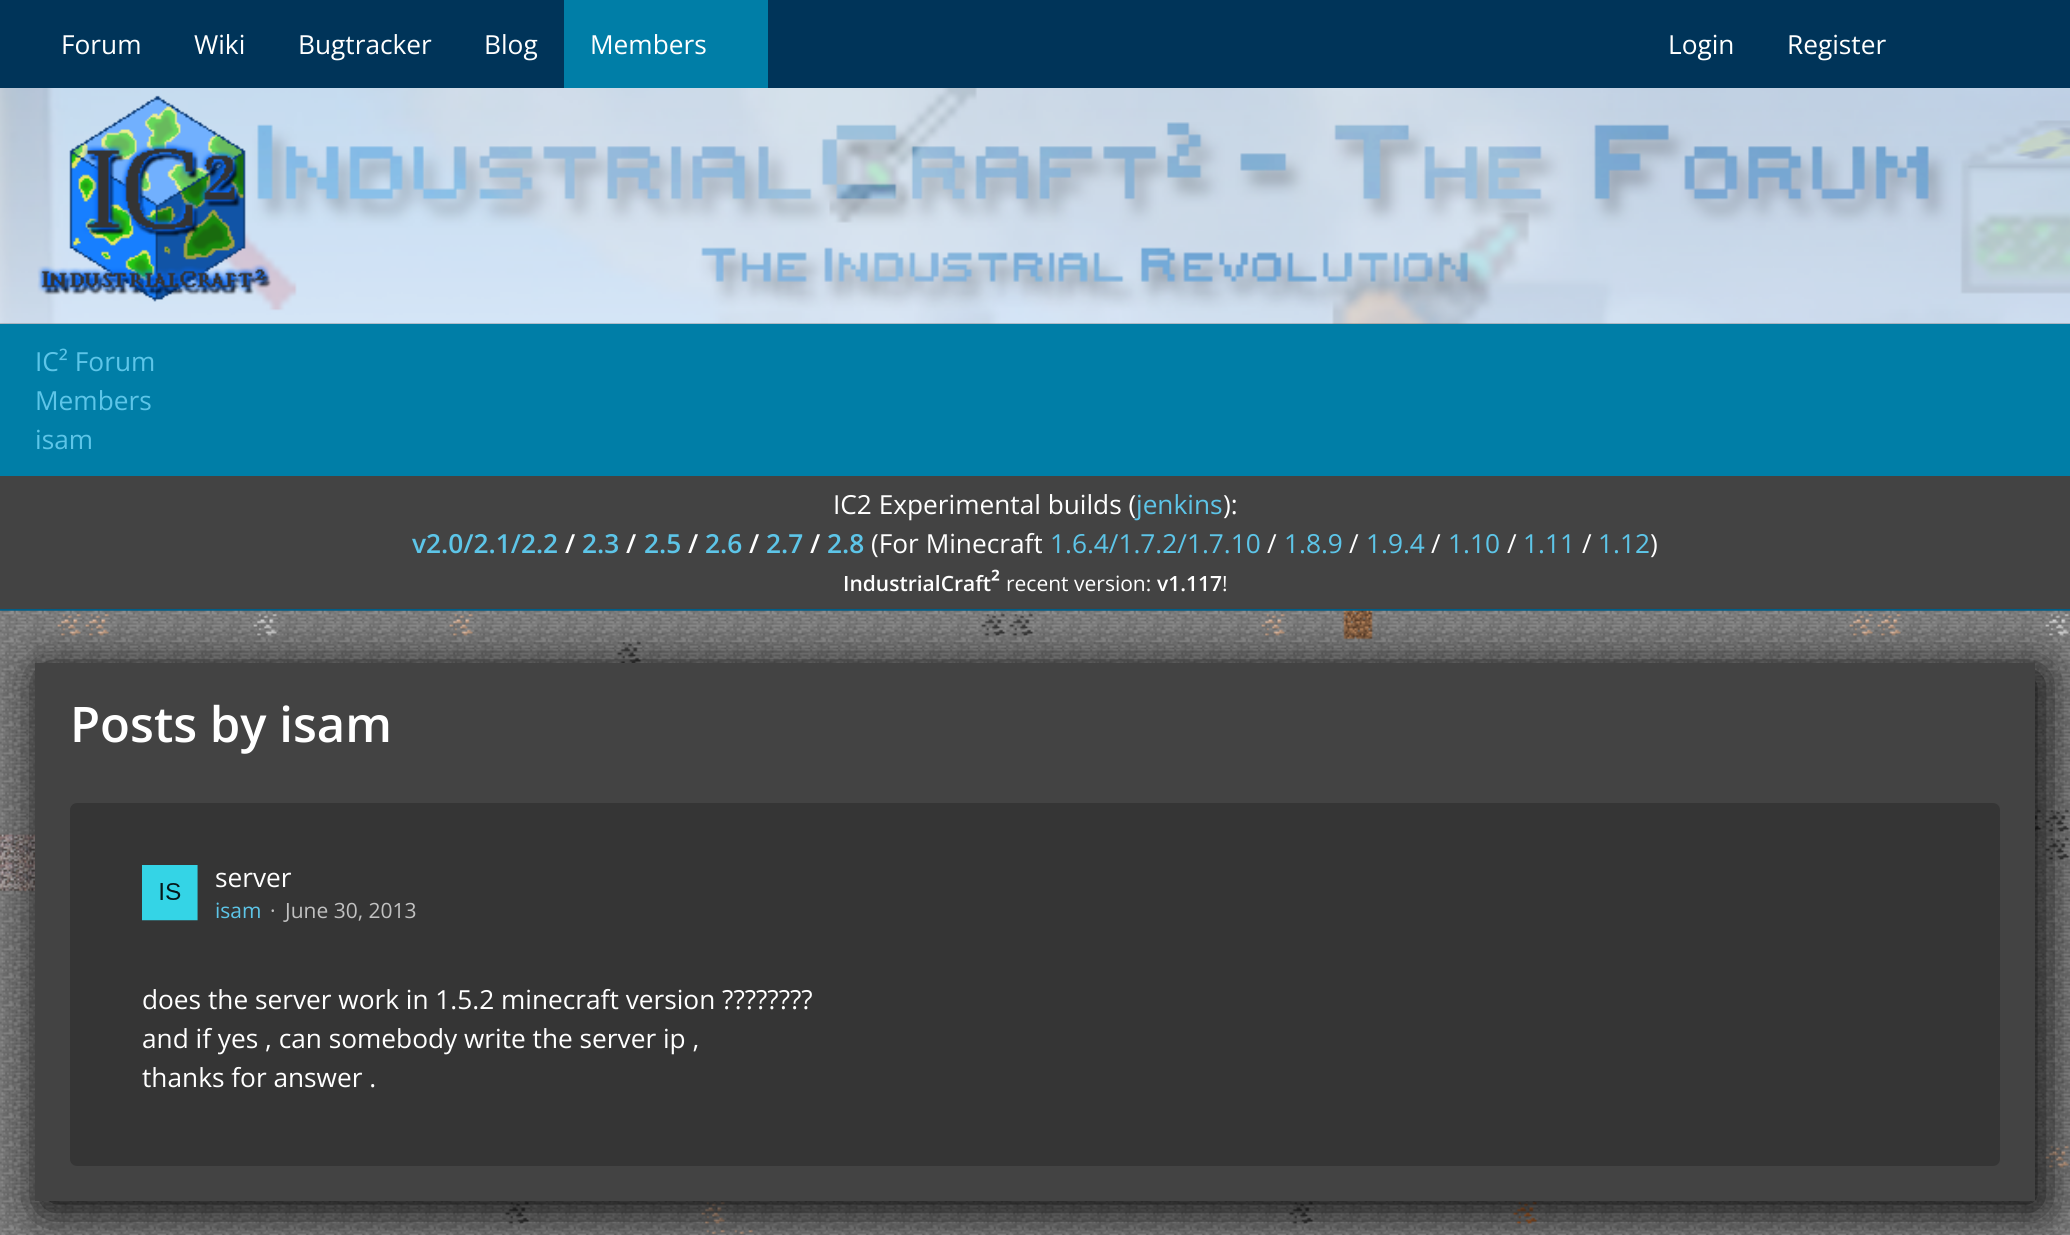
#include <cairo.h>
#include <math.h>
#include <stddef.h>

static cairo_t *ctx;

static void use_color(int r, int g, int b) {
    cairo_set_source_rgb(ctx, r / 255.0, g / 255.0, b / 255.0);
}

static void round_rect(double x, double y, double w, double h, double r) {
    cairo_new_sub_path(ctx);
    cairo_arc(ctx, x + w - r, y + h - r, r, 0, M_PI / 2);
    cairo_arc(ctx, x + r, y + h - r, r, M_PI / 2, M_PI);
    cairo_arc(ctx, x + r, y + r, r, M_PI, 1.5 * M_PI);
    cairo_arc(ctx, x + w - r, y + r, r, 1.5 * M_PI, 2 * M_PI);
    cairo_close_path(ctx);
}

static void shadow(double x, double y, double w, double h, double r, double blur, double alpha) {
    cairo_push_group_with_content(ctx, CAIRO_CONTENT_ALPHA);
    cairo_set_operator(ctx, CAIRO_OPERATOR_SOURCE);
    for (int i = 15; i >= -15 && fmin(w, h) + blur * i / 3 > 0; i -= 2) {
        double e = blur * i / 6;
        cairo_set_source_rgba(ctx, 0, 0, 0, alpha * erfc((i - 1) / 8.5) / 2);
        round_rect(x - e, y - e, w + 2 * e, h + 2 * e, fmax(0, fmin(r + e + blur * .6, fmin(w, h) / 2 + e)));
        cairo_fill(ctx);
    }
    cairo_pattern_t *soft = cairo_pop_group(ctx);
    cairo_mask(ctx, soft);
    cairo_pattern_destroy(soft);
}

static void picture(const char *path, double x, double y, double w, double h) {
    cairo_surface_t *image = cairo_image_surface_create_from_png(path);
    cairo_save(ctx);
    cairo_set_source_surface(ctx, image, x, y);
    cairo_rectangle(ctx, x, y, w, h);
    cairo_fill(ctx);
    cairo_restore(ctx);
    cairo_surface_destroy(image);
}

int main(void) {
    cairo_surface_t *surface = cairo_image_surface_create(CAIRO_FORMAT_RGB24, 2070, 1235);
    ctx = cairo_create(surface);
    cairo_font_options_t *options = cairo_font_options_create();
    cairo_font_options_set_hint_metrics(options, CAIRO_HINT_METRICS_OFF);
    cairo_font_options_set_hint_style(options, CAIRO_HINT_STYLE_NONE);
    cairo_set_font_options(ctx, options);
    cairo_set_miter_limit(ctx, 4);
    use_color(67, 67, 67);
    cairo_paint(ctx);
    picture("img1.png", 0, 88, 2070, 236);
    use_color(0, 52, 89);
    cairo_rectangle(ctx, 0, 0, 2070, 88);
    cairo_fill(ctx);
    cairo_select_font_face(ctx, "Open Sans", CAIRO_FONT_SLANT_NORMAL, CAIRO_FONT_WEIGHT_NORMAL);
    cairo_set_font_size(ctx, 26.25);
    use_color(255, 255, 255);
    cairo_move_to(ctx, 61, 54);
    cairo_show_text(ctx, "Forum");
    cairo_move_to(ctx, 194, 54);
    cairo_show_text(ctx, "Wiki");
    cairo_move_to(ctx, 298, 54);
    cairo_show_text(ctx, "Bugtracker");
    cairo_move_to(ctx, 484, 54);
    cairo_show_text(ctx, "Blog");
    use_color(0, 126, 167);
    cairo_rectangle(ctx, 564, 0, 204, 88);
    cairo_fill(ctx);
    use_color(255, 255, 255);
    cairo_move_to(ctx, 590, 54);
    cairo_show_text(ctx, "Members");
    cairo_move_to(ctx, 1668, 54);
    cairo_show_text(ctx, "Login");
    cairo_move_to(ctx, 1787, 54);
    cairo_show_text(ctx, "Register");
    picture("img2.png", 37, 95, 235, 207);
    use_color(0, 126, 167);
    cairo_rectangle(ctx, 0, 324, 2070, 152);
    cairo_fill(ctx);
    use_color(93, 197, 232);
    cairo_move_to(ctx, 35, 371);
    cairo_show_text(ctx, "IC² Forum");
    cairo_move_to(ctx, 35, 410);
    cairo_show_text(ctx, "Members");
    cairo_move_to(ctx, 35, 449);
    cairo_show_text(ctx, "isam");
    use_color(0, 94, 135);
    cairo_rectangle(ctx, 0, 609, 2070, 2);
    cairo_fill(ctx);
    use_color(255, 255, 255);
    cairo_move_to(ctx, 833, 514);
    cairo_show_text(ctx, "IC2 Experimental builds (");
    use_color(93, 197, 232);
    cairo_move_to(ctx, 1136, 514);
    cairo_show_text(ctx, "jenkins");
    use_color(255, 255, 255);
    cairo_move_to(ctx, 1223, 514);
    cairo_show_text(ctx, "):");
    cairo_select_font_face(ctx, "Open Sans SemiBold", CAIRO_FONT_SLANT_NORMAL, CAIRO_FONT_WEIGHT_NORMAL);
    use_color(93, 197, 232);
    cairo_move_to(ctx, 412, 553);
    cairo_show_text(ctx, "v2.0/2.1/2.2");
    use_color(255, 255, 255);
    cairo_move_to(ctx, 565, 553);
    cairo_show_text(ctx, "/");
    use_color(93, 197, 232);
    cairo_move_to(ctx, 582, 553);
    cairo_show_text(ctx, "2.3");
    use_color(255, 255, 255);
    cairo_move_to(ctx, 626, 553);
    cairo_show_text(ctx, "/");
    use_color(93, 197, 232);
    cairo_move_to(ctx, 644, 553);
    cairo_show_text(ctx, "2.5");
    use_color(255, 255, 255);
    cairo_move_to(ctx, 688, 553);
    cairo_show_text(ctx, "/");
    use_color(93, 197, 232);
    cairo_move_to(ctx, 705, 553);
    cairo_show_text(ctx, "2.6");
    use_color(255, 255, 255);
    cairo_move_to(ctx, 749, 553);
    cairo_show_text(ctx, "/");
    use_color(93, 197, 232);
    cairo_move_to(ctx, 766, 553);
    cairo_show_text(ctx, "2.7");
    use_color(255, 255, 255);
    cairo_move_to(ctx, 810, 553);
    cairo_show_text(ctx, "/");
    use_color(93, 197, 232);
    cairo_move_to(ctx, 827, 553);
    cairo_show_text(ctx, "2.8");
    cairo_select_font_face(ctx, "Open Sans", CAIRO_FONT_SLANT_NORMAL, CAIRO_FONT_WEIGHT_NORMAL);
    use_color(255, 255, 255);
    cairo_move_to(ctx, 871, 553);
    cairo_show_text(ctx, "(For Minecraft");
    use_color(93, 197, 232);
    cairo_move_to(ctx, 1050, 553);
    cairo_show_text(ctx, "1.6.4/1.7.2/1.7.10");
    use_color(255, 255, 255);
    cairo_move_to(ctx, 1267, 553);
    cairo_show_text(ctx, "/");
    use_color(93, 197, 232);
    cairo_move_to(ctx, 1284, 553);
    cairo_show_text(ctx, "1.8.9");
    use_color(255, 255, 255);
    cairo_move_to(ctx, 1349, 553);
    cairo_show_text(ctx, "/");
    use_color(93, 197, 232);
    cairo_move_to(ctx, 1366, 553);
    cairo_show_text(ctx, "1.9.4");
    use_color(255, 255, 255);
    cairo_move_to(ctx, 1431, 553);
    cairo_show_text(ctx, "/");
    use_color(93, 197, 232);
    cairo_move_to(ctx, 1448, 553);
    cairo_show_text(ctx, "1.10");
    use_color(255, 255, 255);
    cairo_move_to(ctx, 1507, 553);
    cairo_show_text(ctx, "/");
    use_color(93, 197, 232);
    cairo_move_to(ctx, 1523, 553);
    cairo_show_text(ctx, "1.11");
    use_color(255, 255, 255);
    cairo_move_to(ctx, 1582, 553);
    cairo_show_text(ctx, "/");
    use_color(93, 197, 232);
    cairo_move_to(ctx, 1598, 553);
    cairo_show_text(ctx, "1.12");
    use_color(255, 255, 255);
    cairo_move_to(ctx, 1650, 553);
    cairo_show_text(ctx, ")");
    cairo_select_font_face(ctx, "Open Sans SemiBold", CAIRO_FONT_SLANT_NORMAL, CAIRO_FONT_WEIGHT_NORMAL);
    cairo_set_font_size(ctx, 21);
    cairo_move_to(ctx, 843, 591);
    cairo_show_text(ctx, "IndustrialCraft");
    cairo_set_font_size(ctx, 25);
    cairo_move_to(ctx, 991, 591);
    cairo_show_text(ctx, "²");
    cairo_select_font_face(ctx, "Open Sans", CAIRO_FONT_SLANT_NORMAL, CAIRO_FONT_WEIGHT_NORMAL);
    cairo_set_font_size(ctx, 21);
    cairo_move_to(ctx, 1006, 591);
    cairo_show_text(ctx, "recent version:");
    cairo_select_font_face(ctx, "Open Sans SemiBold", CAIRO_FONT_SLANT_NORMAL, CAIRO_FONT_WEIGHT_NORMAL);
    cairo_move_to(ctx, 1157, 591);
    cairo_show_text(ctx, "v1.117");
    cairo_select_font_face(ctx, "Open Sans", CAIRO_FONT_SLANT_NORMAL, CAIRO_FONT_WEIGHT_NORMAL);
    cairo_move_to(ctx, 1222, 591);
    cairo_show_text(ctx, "!");
    picture("img3.png", 0, 610, 2070, 625);
    use_color(0, 0, 0);
    shadow(42, 672, 2000, 537, 0, 26, 1);
    use_color(67, 67, 67);
    cairo_rectangle(ctx, 35, 663, 2000, 538);
    cairo_fill(ctx);
    cairo_select_font_face(ctx, "Open Sans SemiBold", CAIRO_FONT_SLANT_NORMAL, CAIRO_FONT_WEIGHT_NORMAL);
    cairo_set_font_size(ctx, 49);
    use_color(255, 255, 255);
    cairo_move_to(ctx, 70, 742);
    cairo_show_text(ctx, "Posts by isam");
    use_color(53, 53, 53);
    round_rect(71, 804, 1928, 361, 6);
    cairo_fill_preserve(ctx);
    cairo_stroke(ctx);
    picture("img4.png", 142, 865, 56, 56);
    cairo_select_font_face(ctx, "Open Sans", CAIRO_FONT_SLANT_NORMAL, CAIRO_FONT_WEIGHT_NORMAL);
    cairo_set_font_size(ctx, 26.25);
    use_color(255, 255, 255);
    cairo_move_to(ctx, 215, 887);
    cairo_show_text(ctx, "server");
    cairo_set_font_size(ctx, 21);
    use_color(93, 197, 232);
    cairo_move_to(ctx, 215, 918);
    cairo_show_text(ctx, "isam");
    use_color(193, 193, 193);
    cairo_move_to(ctx, 270, 918);
    cairo_show_text(ctx, "·");
    cairo_move_to(ctx, 285, 918);
    cairo_show_text(ctx, "June 30, 2013");
    cairo_set_font_size(ctx, 26.25);
    use_color(255, 255, 255);
    cairo_move_to(ctx, 142, 1009);
    cairo_show_text(ctx, "does the server work in 1.5.2 minecraft version ?\077?\077?\077?\077");
    cairo_move_to(ctx, 142, 1048);
    cairo_show_text(ctx, "and if yes , can somebody write the server ip ,");
    cairo_move_to(ctx, 142, 1087);
    cairo_show_text(ctx, "thanks for answer .");
    cairo_surface_write_to_png(surface, "result.png");
    cairo_font_options_destroy(options);
    cairo_destroy(ctx);
    cairo_surface_destroy(surface);
    return 0;
}
